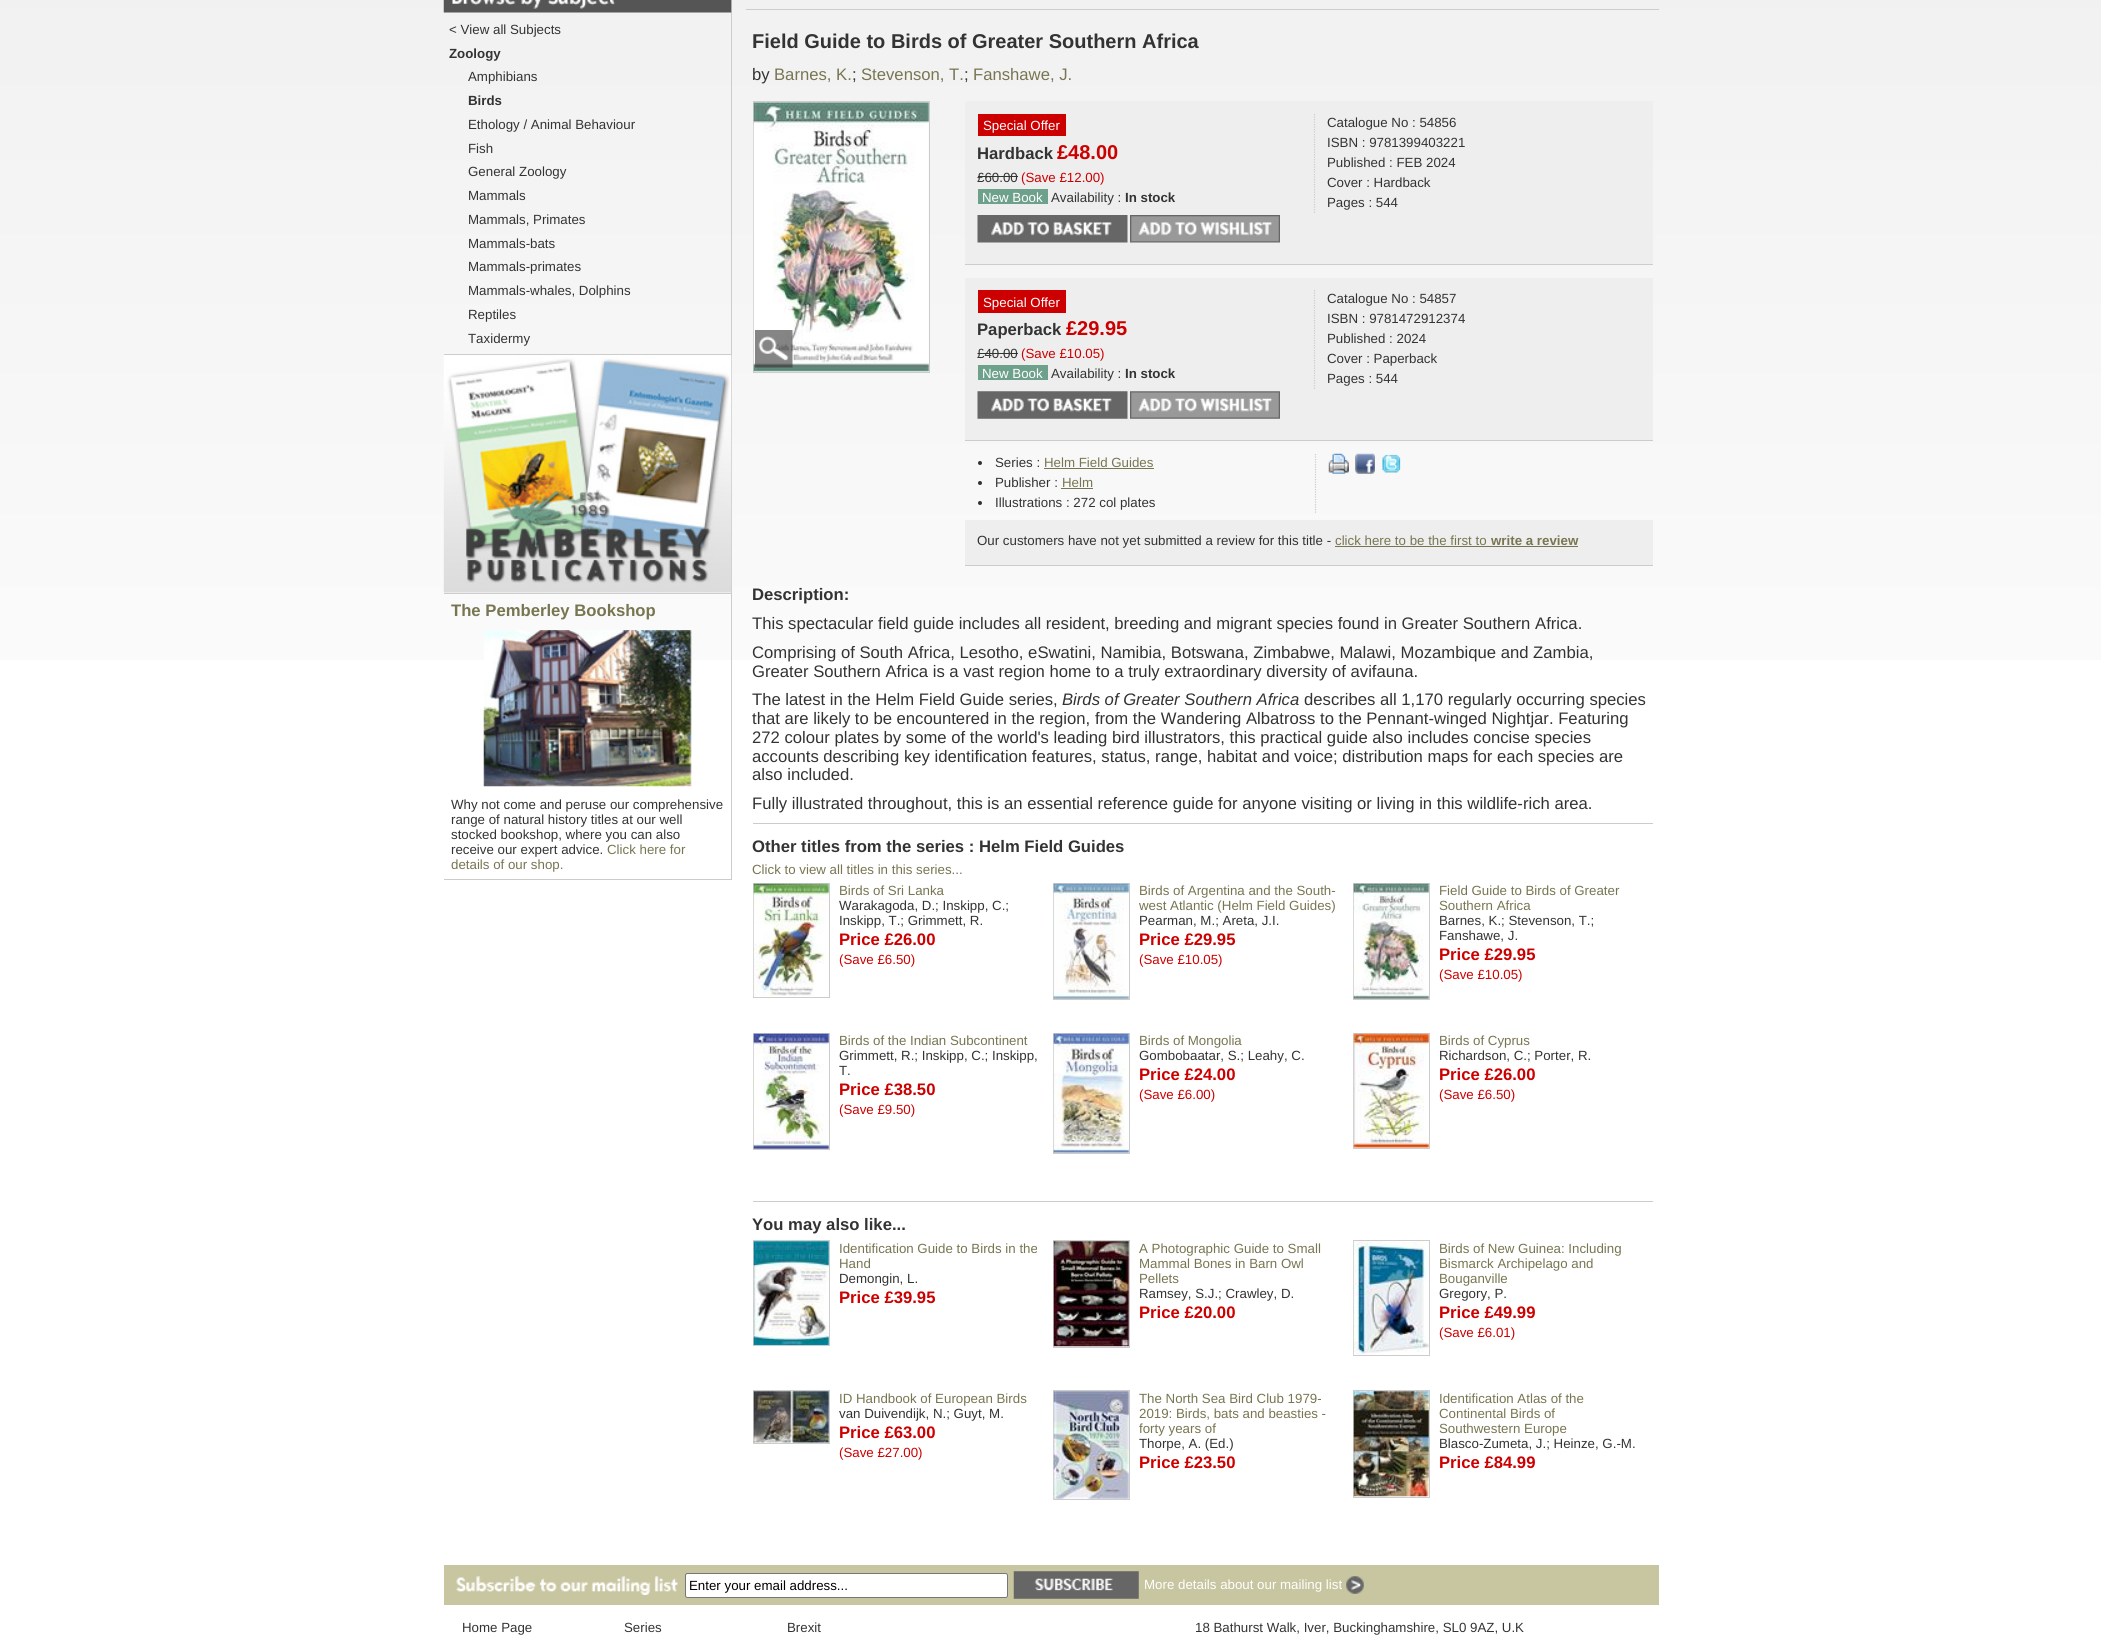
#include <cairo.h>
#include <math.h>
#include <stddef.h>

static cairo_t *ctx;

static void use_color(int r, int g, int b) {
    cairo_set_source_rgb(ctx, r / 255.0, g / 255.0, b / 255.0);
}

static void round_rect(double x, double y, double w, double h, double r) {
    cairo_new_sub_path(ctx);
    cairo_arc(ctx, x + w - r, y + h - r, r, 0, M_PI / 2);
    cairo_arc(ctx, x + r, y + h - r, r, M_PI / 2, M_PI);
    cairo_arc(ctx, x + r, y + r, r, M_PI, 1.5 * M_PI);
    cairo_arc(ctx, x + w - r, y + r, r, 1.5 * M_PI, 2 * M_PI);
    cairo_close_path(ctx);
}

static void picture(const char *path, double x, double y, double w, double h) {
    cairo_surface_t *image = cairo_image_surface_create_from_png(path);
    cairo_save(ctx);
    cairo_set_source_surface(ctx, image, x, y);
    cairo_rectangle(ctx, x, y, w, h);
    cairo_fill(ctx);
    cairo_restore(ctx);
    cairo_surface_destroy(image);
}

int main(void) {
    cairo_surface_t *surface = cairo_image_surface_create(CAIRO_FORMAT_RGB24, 2101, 1636);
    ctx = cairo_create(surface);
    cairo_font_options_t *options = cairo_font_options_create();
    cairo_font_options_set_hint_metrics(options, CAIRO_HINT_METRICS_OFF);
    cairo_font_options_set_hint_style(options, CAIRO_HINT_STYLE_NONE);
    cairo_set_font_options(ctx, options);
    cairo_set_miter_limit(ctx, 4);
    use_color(255, 255, 255);
    cairo_paint(ctx);
    picture("img1.png", 0, 0, 2101, 660);
    use_color(204, 204, 204);
    cairo_rectangle(ctx, 731, 0, 1, 880);
    cairo_fill(ctx);
    picture("img2.png", 443, 0, 289, 13);
    cairo_select_font_face(ctx, "Liberation Sans", CAIRO_FONT_SLANT_NORMAL, CAIRO_FONT_WEIGHT_NORMAL);
    cairo_set_font_size(ctx, 13.3);
    use_color(51, 51, 51);
    cairo_move_to(ctx, 449, 34);
    cairo_show_text(ctx, "< View all Subjects");
    cairo_select_font_face(ctx, "Liberation Sans", CAIRO_FONT_SLANT_NORMAL, CAIRO_FONT_WEIGHT_BOLD);
    cairo_move_to(ctx, 449, 58);
    cairo_show_text(ctx, "Zoology");
    cairo_select_font_face(ctx, "Liberation Sans", CAIRO_FONT_SLANT_NORMAL, CAIRO_FONT_WEIGHT_NORMAL);
    cairo_move_to(ctx, 468, 81);
    cairo_show_text(ctx, "Amphibians");
    cairo_select_font_face(ctx, "Liberation Sans", CAIRO_FONT_SLANT_NORMAL, CAIRO_FONT_WEIGHT_BOLD);
    cairo_move_to(ctx, 468, 105);
    cairo_show_text(ctx, "Birds");
    cairo_select_font_face(ctx, "Liberation Sans", CAIRO_FONT_SLANT_NORMAL, CAIRO_FONT_WEIGHT_NORMAL);
    cairo_move_to(ctx, 468, 129);
    cairo_show_text(ctx, "Ethology / Animal Behaviour");
    cairo_move_to(ctx, 468, 153);
    cairo_show_text(ctx, "Fish");
    cairo_move_to(ctx, 468, 176);
    cairo_show_text(ctx, "General Zoology");
    cairo_move_to(ctx, 468, 200);
    cairo_show_text(ctx, "Mammals");
    cairo_move_to(ctx, 468, 224);
    cairo_show_text(ctx, "Mammals, Primates");
    cairo_move_to(ctx, 468, 248);
    cairo_show_text(ctx, "Mammals-bats");
    cairo_move_to(ctx, 468, 271);
    cairo_show_text(ctx, "Mammals-primates");
    cairo_move_to(ctx, 468, 295);
    cairo_show_text(ctx, "Mammals-whales, Dolphins");
    cairo_move_to(ctx, 468, 319);
    cairo_show_text(ctx, "Reptiles");
    cairo_move_to(ctx, 468, 343);
    cairo_show_text(ctx, "Taxidermy");
    use_color(204, 204, 204);
    cairo_rectangle(ctx, 444, 354, 287, 1);
    cairo_fill(ctx);
    cairo_rectangle(ctx, 444, 593, 287, 1);
    cairo_fill(ctx);
    picture("img3.png", 443, 355, 289, 238);
    cairo_rectangle(ctx, 444, 879, 287, 1);
    cairo_fill(ctx);
    cairo_select_font_face(ctx, "Liberation Sans", CAIRO_FONT_SLANT_NORMAL, CAIRO_FONT_WEIGHT_BOLD);
    cairo_set_font_size(ctx, 16.67);
    use_color(120, 117, 81);
    cairo_move_to(ctx, 451, 616);
    cairo_show_text(ctx, "The Pemberley Bookshop");
    picture("img4.png", 483, 630, 209, 157);
    cairo_select_font_face(ctx, "Liberation Sans", CAIRO_FONT_SLANT_NORMAL, CAIRO_FONT_WEIGHT_NORMAL);
    cairo_set_font_size(ctx, 13.3);
    use_color(51, 51, 51);
    cairo_move_to(ctx, 451, 809);
    cairo_show_text(ctx, "Why not come and peruse our comprehensive");
    cairo_move_to(ctx, 451, 824);
    cairo_show_text(ctx, "range of natural history titles at our well");
    cairo_move_to(ctx, 451, 839);
    cairo_show_text(ctx, "stocked bookshop, where you can also");
    cairo_move_to(ctx, 451, 854);
    cairo_show_text(ctx, "receive our expert advice.");
    use_color(120, 117, 81);
    cairo_move_to(ctx, 607, 854);
    cairo_show_text(ctx, "Click here for");
    cairo_move_to(ctx, 451, 869);
    cairo_show_text(ctx, "details of our shop.");
    use_color(204, 204, 204);
    cairo_rectangle(ctx, 746, 9, 913, 1);
    cairo_fill(ctx);
    cairo_select_font_face(ctx, "Liberation Sans", CAIRO_FONT_SLANT_NORMAL, CAIRO_FONT_WEIGHT_BOLD);
    cairo_set_font_size(ctx, 20);
    use_color(51, 51, 51);
    cairo_move_to(ctx, 752, 48);
    cairo_show_text(ctx, "Field Guide to Birds of Greater Southern Africa");
    cairo_select_font_face(ctx, "Liberation Sans", CAIRO_FONT_SLANT_NORMAL, CAIRO_FONT_WEIGHT_NORMAL);
    cairo_set_font_size(ctx, 16.67);
    cairo_move_to(ctx, 752, 80);
    cairo_show_text(ctx, "by");
    use_color(120, 117, 81);
    cairo_move_to(ctx, 774, 80);
    cairo_show_text(ctx, "Barnes, K.");
    use_color(51, 51, 51);
    cairo_move_to(ctx, 852, 80);
    cairo_show_text(ctx, ";");
    use_color(120, 117, 81);
    cairo_move_to(ctx, 861, 80);
    cairo_show_text(ctx, "Stevenson, T.");
    use_color(51, 51, 51);
    cairo_move_to(ctx, 964, 80);
    cairo_show_text(ctx, ";");
    use_color(120, 117, 81);
    cairo_move_to(ctx, 973, 80);
    cairo_show_text(ctx, "Fanshawe, J.");
    cairo_rectangle(ctx, 753.5, 101.5, 176, 271);
    use_color(204, 204, 204);
    cairo_set_line_width(ctx, 1);
    cairo_stroke(ctx);
    picture("img5.png", 753, 102, 176, 270);
    picture("img6.png", 755, 330, 38, 38);
    use_color(238, 238, 238);
    cairo_rectangle(ctx, 965, 101, 688, 163);
    cairo_fill(ctx);
    use_color(204, 204, 204);
    cairo_rectangle(ctx, 965, 264, 688, 1);
    cairo_fill(ctx);
    use_color(204, 0, 0);
    cairo_rectangle(ctx, 978, 114, 88, 22);
    cairo_fill(ctx);
    cairo_set_font_size(ctx, 13.3);
    use_color(255, 255, 255);
    cairo_move_to(ctx, 983, 130);
    cairo_show_text(ctx, "Special Offer");
    cairo_select_font_face(ctx, "Liberation Sans", CAIRO_FONT_SLANT_NORMAL, CAIRO_FONT_WEIGHT_BOLD);
    cairo_set_font_size(ctx, 16.67);
    use_color(51, 51, 51);
    cairo_move_to(ctx, 977, 159);
    cairo_show_text(ctx, "Hardback");
    cairo_set_font_size(ctx, 20);
    use_color(204, 0, 0);
    cairo_move_to(ctx, 1057, 159);
    cairo_show_text(ctx, "£48.00");
    cairo_select_font_face(ctx, "Liberation Sans", CAIRO_FONT_SLANT_NORMAL, CAIRO_FONT_WEIGHT_NORMAL);
    cairo_set_font_size(ctx, 13.3);
    use_color(51, 51, 51);
    cairo_move_to(ctx, 977, 182);
    cairo_show_text(ctx, "£60.00");
    cairo_rectangle(ctx, 978, 176, 40, 1);
    cairo_fill(ctx);
    use_color(204, 0, 0);
    cairo_move_to(ctx, 1021, 182);
    cairo_show_text(ctx, "(Save £12.00)");
    use_color(110, 161, 139);
    cairo_rectangle(ctx, 978, 189, 70, 15);
    cairo_fill(ctx);
    use_color(255, 255, 255);
    cairo_move_to(ctx, 982, 202);
    cairo_show_text(ctx, "New Book");
    use_color(51, 51, 51);
    cairo_move_to(ctx, 1051, 202);
    cairo_show_text(ctx, "Availability :");
    cairo_select_font_face(ctx, "Liberation Sans", CAIRO_FONT_SLANT_NORMAL, CAIRO_FONT_WEIGHT_BOLD);
    cairo_move_to(ctx, 1125, 202);
    cairo_show_text(ctx, "In stock");
    picture("img7.png", 977, 215, 151, 28);
    picture("img8.png", 1130, 215, 150, 28);
    cairo_new_path(ctx);
    cairo_move_to(ctx, 1314.5, 114);
    cairo_line_to(ctx, 1314.5, 214);
    use_color(204, 204, 204);
    cairo_set_line_width(ctx, 1.2);
    cairo_set_dash(ctx, (double[]){1.25, 1.25}, 2, 0);
    cairo_stroke(ctx);
    cairo_select_font_face(ctx, "Liberation Sans", CAIRO_FONT_SLANT_NORMAL, CAIRO_FONT_WEIGHT_NORMAL);
    use_color(51, 51, 51);
    cairo_move_to(ctx, 1327, 127);
    cairo_show_text(ctx, "Catalogue No : 54856");
    cairo_move_to(ctx, 1327, 147);
    cairo_show_text(ctx, "ISBN : 9781399403221");
    cairo_move_to(ctx, 1327, 167);
    cairo_show_text(ctx, "Published : FEB 2024");
    cairo_move_to(ctx, 1327, 187);
    cairo_show_text(ctx, "Cover : Hardback");
    cairo_move_to(ctx, 1327, 207);
    cairo_show_text(ctx, "Pages : 544");
    use_color(238, 238, 238);
    cairo_rectangle(ctx, 965, 278, 688, 162);
    cairo_fill(ctx);
    use_color(204, 204, 204);
    cairo_rectangle(ctx, 965, 440, 688, 1);
    cairo_fill(ctx);
    use_color(204, 0, 0);
    cairo_rectangle(ctx, 978, 290, 88, 23);
    cairo_fill(ctx);
    use_color(255, 255, 255);
    cairo_move_to(ctx, 983, 307);
    cairo_show_text(ctx, "Special Offer");
    cairo_select_font_face(ctx, "Liberation Sans", CAIRO_FONT_SLANT_NORMAL, CAIRO_FONT_WEIGHT_BOLD);
    cairo_set_font_size(ctx, 16.67);
    use_color(51, 51, 51);
    cairo_move_to(ctx, 977, 335);
    cairo_show_text(ctx, "Paperback");
    cairo_set_font_size(ctx, 20);
    use_color(204, 0, 0);
    cairo_move_to(ctx, 1066, 335);
    cairo_show_text(ctx, "£29.95");
    cairo_select_font_face(ctx, "Liberation Sans", CAIRO_FONT_SLANT_NORMAL, CAIRO_FONT_WEIGHT_NORMAL);
    cairo_set_font_size(ctx, 13.3);
    use_color(51, 51, 51);
    cairo_move_to(ctx, 977, 358);
    cairo_show_text(ctx, "£40.00");
    cairo_rectangle(ctx, 978, 353, 40, 1);
    cairo_fill(ctx);
    use_color(204, 0, 0);
    cairo_move_to(ctx, 1021, 358);
    cairo_show_text(ctx, "(Save £10.05)");
    use_color(110, 161, 139);
    cairo_rectangle(ctx, 978, 365, 70, 15);
    cairo_fill(ctx);
    use_color(255, 255, 255);
    cairo_move_to(ctx, 982, 378);
    cairo_show_text(ctx, "New Book");
    use_color(51, 51, 51);
    cairo_move_to(ctx, 1051, 378);
    cairo_show_text(ctx, "Availability :");
    cairo_select_font_face(ctx, "Liberation Sans", CAIRO_FONT_SLANT_NORMAL, CAIRO_FONT_WEIGHT_BOLD);
    cairo_move_to(ctx, 1125, 378);
    cairo_show_text(ctx, "In stock");
    picture("img9.png", 977, 391, 151, 28);
    picture("img10.png", 1130, 391, 150, 28);
    cairo_new_path(ctx);
    cairo_move_to(ctx, 1314.5, 290);
    cairo_line_to(ctx, 1314.5, 390);
    use_color(204, 204, 204);
    cairo_stroke(ctx);
    cairo_select_font_face(ctx, "Liberation Sans", CAIRO_FONT_SLANT_NORMAL, CAIRO_FONT_WEIGHT_NORMAL);
    use_color(51, 51, 51);
    cairo_move_to(ctx, 1327, 303);
    cairo_show_text(ctx, "Catalogue No : 54857");
    cairo_move_to(ctx, 1327, 323);
    cairo_show_text(ctx, "ISBN : 9781472912374");
    cairo_move_to(ctx, 1327, 343);
    cairo_show_text(ctx, "Published : 2024");
    cairo_move_to(ctx, 1327, 363);
    cairo_show_text(ctx, "Cover : Paperback");
    cairo_move_to(ctx, 1327, 383);
    cairo_show_text(ctx, "Pages : 544");
    cairo_new_path(ctx);
    cairo_move_to(ctx, 1315.5, 454);
    cairo_line_to(ctx, 1315.5, 514);
    use_color(204, 204, 204);
    cairo_stroke(ctx);
    use_color(51, 51, 51);
    cairo_arc(ctx, 980, 463, 2, 0, 2 * M_PI);
    cairo_fill(ctx);
    cairo_move_to(ctx, 995, 467);
    cairo_show_text(ctx, "Series :");
    use_color(120, 117, 81);
    cairo_move_to(ctx, 1044, 467);
    cairo_show_text(ctx, "Helm Field Guides");
    cairo_rectangle(ctx, 1044, 468, 110, 1);
    cairo_fill(ctx);
    use_color(51, 51, 51);
    cairo_arc(ctx, 980, 483, 2, 0, 2 * M_PI);
    cairo_fill(ctx);
    cairo_move_to(ctx, 995, 487);
    cairo_show_text(ctx, "Publisher :");
    use_color(120, 117, 81);
    cairo_move_to(ctx, 1062, 487);
    cairo_show_text(ctx, "Helm");
    cairo_rectangle(ctx, 1061, 488, 32, 1);
    cairo_fill(ctx);
    use_color(51, 51, 51);
    cairo_arc(ctx, 980, 503, 2, 0, 2 * M_PI);
    cairo_fill(ctx);
    cairo_move_to(ctx, 995, 507);
    cairo_show_text(ctx, "Illustrations : 272 col plates");
    picture("img11.png", 1328, 453, 21, 21);
    picture("img12.png", 1355, 453, 20, 21);
    picture("img13.png", 1382, 454, 19, 19);
    use_color(238, 238, 238);
    cairo_rectangle(ctx, 965, 520, 688, 45);
    cairo_fill(ctx);
    use_color(204, 204, 204);
    cairo_rectangle(ctx, 965, 565, 688, 1);
    cairo_fill(ctx);
    use_color(51, 51, 51);
    cairo_move_to(ctx, 977, 545);
    cairo_show_text(ctx, "Our customers have not yet submitted a review for this title -");
    use_color(120, 117, 81);
    cairo_move_to(ctx, 1335, 545);
    cairo_show_text(ctx, "click here to be the first to");
    cairo_rectangle(ctx, 1335, 546, 243, 1);
    cairo_fill(ctx);
    cairo_select_font_face(ctx, "Liberation Sans", CAIRO_FONT_SLANT_NORMAL, CAIRO_FONT_WEIGHT_BOLD);
    cairo_move_to(ctx, 1491, 545);
    cairo_show_text(ctx, "write a review");
    cairo_set_font_size(ctx, 16.67);
    use_color(51, 51, 51);
    cairo_move_to(ctx, 752, 600);
    cairo_show_text(ctx, "Description:");
    cairo_select_font_face(ctx, "Liberation Sans", CAIRO_FONT_SLANT_NORMAL, CAIRO_FONT_WEIGHT_NORMAL);
    cairo_move_to(ctx, 752, 629);
    cairo_show_text(ctx, "This spectacular field guide includes all resident, breeding and migrant species found in Greater Southern Africa.");
    cairo_move_to(ctx, 752, 658);
    cairo_show_text(ctx, "Comprising of South Africa, Lesotho, eSwatini, Namibia, Botswana, Zimbabwe, Malawi, Mozambique and Zambia,");
    cairo_move_to(ctx, 752, 677);
    cairo_show_text(ctx, "Greater Southern Africa is a vast region home to a truly extraordinary diversity of avifauna.");
    cairo_move_to(ctx, 752, 705);
    cairo_show_text(ctx, "The latest in the Helm Field Guide series,");
    cairo_select_font_face(ctx, "Liberation Sans", CAIRO_FONT_SLANT_ITALIC, CAIRO_FONT_WEIGHT_NORMAL);
    cairo_move_to(ctx, 1062, 705);
    cairo_show_text(ctx, "Birds of Greater Southern Africa");
    cairo_select_font_face(ctx, "Liberation Sans", CAIRO_FONT_SLANT_NORMAL, CAIRO_FONT_WEIGHT_NORMAL);
    cairo_move_to(ctx, 1304, 705);
    cairo_show_text(ctx, "describes all 1,170 regularly occurring species");
    cairo_move_to(ctx, 752, 724);
    cairo_show_text(ctx, "that are likely to be encountered in the region, from the Wandering Albatross to the Pennant-winged Nightjar. Featuring");
    cairo_move_to(ctx, 752, 743);
    cairo_show_text(ctx, "272 colour plates by some of the world's leading bird illustrators, this practical guide also includes concise species");
    cairo_move_to(ctx, 752, 762);
    cairo_show_text(ctx, "accounts describing key identification features, status, range, habitat and voice; distribution maps for each species are");
    cairo_move_to(ctx, 752, 780);
    cairo_show_text(ctx, "also included.");
    cairo_move_to(ctx, 752, 809);
    cairo_show_text(ctx, "Fully illustrated throughout, this is an essential reference guide for anyone visiting or living in this wildlife-rich area.");
    use_color(204, 204, 204);
    cairo_rectangle(ctx, 753, 823, 900, 1);
    cairo_fill(ctx);
    cairo_select_font_face(ctx, "Liberation Sans", CAIRO_FONT_SLANT_NORMAL, CAIRO_FONT_WEIGHT_BOLD);
    use_color(51, 51, 51);
    cairo_move_to(ctx, 752, 852);
    cairo_show_text(ctx, "Other titles from the series : Helm Field Guides");
    cairo_select_font_face(ctx, "Liberation Sans", CAIRO_FONT_SLANT_NORMAL, CAIRO_FONT_WEIGHT_NORMAL);
    cairo_set_font_size(ctx, 13.3);
    use_color(120, 117, 81);
    cairo_move_to(ctx, 752, 874);
    cairo_show_text(ctx, "Click to view all titles in this series...");
    cairo_rectangle(ctx, 753.5, 883.5, 76, 114);
    use_color(204, 204, 204);
    cairo_set_line_width(ctx, 1);
    cairo_set_dash(ctx, NULL, 0, 0);
    cairo_stroke(ctx);
    picture("img14.png", 753, 883, 76, 113);
    use_color(120, 117, 81);
    cairo_move_to(ctx, 839, 895);
    cairo_show_text(ctx, "Birds of Sri Lanka");
    use_color(51, 51, 51);
    cairo_move_to(ctx, 839, 910);
    cairo_show_text(ctx, "Warakagoda, D.; Inskipp, C.;");
    cairo_move_to(ctx, 839, 925);
    cairo_show_text(ctx, "Inskipp, T.; Grimmett, R.");
    cairo_select_font_face(ctx, "Liberation Sans", CAIRO_FONT_SLANT_NORMAL, CAIRO_FONT_WEIGHT_BOLD);
    cairo_set_font_size(ctx, 16.67);
    use_color(204, 0, 0);
    cairo_move_to(ctx, 839, 945);
    cairo_show_text(ctx, "Price £26.00");
    cairo_select_font_face(ctx, "Liberation Sans", CAIRO_FONT_SLANT_NORMAL, CAIRO_FONT_WEIGHT_NORMAL);
    cairo_set_font_size(ctx, 13.3);
    cairo_move_to(ctx, 839, 964);
    cairo_show_text(ctx, "(Save £6.50)");
    cairo_rectangle(ctx, 1053.5, 883.5, 76, 116);
    use_color(204, 204, 204);
    cairo_stroke(ctx);
    picture("img15.png", 1053, 883, 76, 116);
    use_color(120, 117, 81);
    cairo_move_to(ctx, 1139, 895);
    cairo_show_text(ctx, "Birds of Argentina and the South-");
    cairo_move_to(ctx, 1139, 910);
    cairo_show_text(ctx, "west Atlantic (Helm Field Guides)");
    use_color(51, 51, 51);
    cairo_move_to(ctx, 1139, 925);
    cairo_show_text(ctx, "Pearman, M.; Areta, J.I.");
    cairo_select_font_face(ctx, "Liberation Sans", CAIRO_FONT_SLANT_NORMAL, CAIRO_FONT_WEIGHT_BOLD);
    cairo_set_font_size(ctx, 16.67);
    use_color(204, 0, 0);
    cairo_move_to(ctx, 1139, 945);
    cairo_show_text(ctx, "Price £29.95");
    cairo_select_font_face(ctx, "Liberation Sans", CAIRO_FONT_SLANT_NORMAL, CAIRO_FONT_WEIGHT_NORMAL);
    cairo_set_font_size(ctx, 13.3);
    cairo_move_to(ctx, 1139, 964);
    cairo_show_text(ctx, "(Save £10.05)");
    cairo_rectangle(ctx, 1353.5, 883.5, 76, 116);
    use_color(204, 204, 204);
    cairo_stroke(ctx);
    picture("img16.png", 1353, 883, 76, 116);
    use_color(120, 117, 81);
    cairo_move_to(ctx, 1439, 895);
    cairo_show_text(ctx, "Field Guide to Birds of Greater");
    cairo_move_to(ctx, 1439, 910);
    cairo_show_text(ctx, "Southern Africa");
    use_color(51, 51, 51);
    cairo_move_to(ctx, 1439, 925);
    cairo_show_text(ctx, "Barnes, K.; Stevenson, T.;");
    cairo_move_to(ctx, 1439, 940);
    cairo_show_text(ctx, "Fanshawe, J.");
    cairo_select_font_face(ctx, "Liberation Sans", CAIRO_FONT_SLANT_NORMAL, CAIRO_FONT_WEIGHT_BOLD);
    cairo_set_font_size(ctx, 16.67);
    use_color(204, 0, 0);
    cairo_move_to(ctx, 1439, 960);
    cairo_show_text(ctx, "Price £29.95");
    cairo_select_font_face(ctx, "Liberation Sans", CAIRO_FONT_SLANT_NORMAL, CAIRO_FONT_WEIGHT_NORMAL);
    cairo_set_font_size(ctx, 13.3);
    cairo_move_to(ctx, 1439, 979);
    cairo_show_text(ctx, "(Save £10.05)");
    cairo_rectangle(ctx, 753.5, 1033.5, 76, 116);
    use_color(204, 204, 204);
    cairo_stroke(ctx);
    picture("img17.png", 753, 1033, 76, 116);
    use_color(120, 117, 81);
    cairo_move_to(ctx, 839, 1045);
    cairo_show_text(ctx, "Birds of the Indian Subcontinent");
    use_color(51, 51, 51);
    cairo_move_to(ctx, 839, 1060);
    cairo_show_text(ctx, "Grimmett, R.; Inskipp, C.; Inskipp,");
    cairo_move_to(ctx, 839, 1075);
    cairo_show_text(ctx, "T.");
    cairo_select_font_face(ctx, "Liberation Sans", CAIRO_FONT_SLANT_NORMAL, CAIRO_FONT_WEIGHT_BOLD);
    cairo_set_font_size(ctx, 16.67);
    use_color(204, 0, 0);
    cairo_move_to(ctx, 839, 1095);
    cairo_show_text(ctx, "Price £38.50");
    cairo_select_font_face(ctx, "Liberation Sans", CAIRO_FONT_SLANT_NORMAL, CAIRO_FONT_WEIGHT_NORMAL);
    cairo_set_font_size(ctx, 13.3);
    cairo_move_to(ctx, 839, 1114);
    cairo_show_text(ctx, "(Save £9.50)");
    cairo_rectangle(ctx, 1053.5, 1033.5, 76, 120);
    use_color(204, 204, 204);
    cairo_stroke(ctx);
    picture("img18.png", 1053, 1033, 76, 120);
    use_color(120, 117, 81);
    cairo_move_to(ctx, 1139, 1045);
    cairo_show_text(ctx, "Birds of Mongolia");
    use_color(51, 51, 51);
    cairo_move_to(ctx, 1139, 1060);
    cairo_show_text(ctx, "Gombobaatar, S.; Leahy, C.");
    cairo_select_font_face(ctx, "Liberation Sans", CAIRO_FONT_SLANT_NORMAL, CAIRO_FONT_WEIGHT_BOLD);
    cairo_set_font_size(ctx, 16.67);
    use_color(204, 0, 0);
    cairo_move_to(ctx, 1139, 1080);
    cairo_show_text(ctx, "Price £24.00");
    cairo_select_font_face(ctx, "Liberation Sans", CAIRO_FONT_SLANT_NORMAL, CAIRO_FONT_WEIGHT_NORMAL);
    cairo_set_font_size(ctx, 13.3);
    cairo_move_to(ctx, 1139, 1099);
    cairo_show_text(ctx, "(Save £6.00)");
    cairo_rectangle(ctx, 1353.5, 1033.5, 76, 115);
    use_color(204, 204, 204);
    cairo_stroke(ctx);
    picture("img19.png", 1353, 1033, 76, 115);
    use_color(120, 117, 81);
    cairo_move_to(ctx, 1439, 1045);
    cairo_show_text(ctx, "Birds of Cyprus");
    use_color(51, 51, 51);
    cairo_move_to(ctx, 1439, 1060);
    cairo_show_text(ctx, "Richardson, C.; Porter, R.");
    cairo_select_font_face(ctx, "Liberation Sans", CAIRO_FONT_SLANT_NORMAL, CAIRO_FONT_WEIGHT_BOLD);
    cairo_set_font_size(ctx, 16.67);
    use_color(204, 0, 0);
    cairo_move_to(ctx, 1439, 1080);
    cairo_show_text(ctx, "Price £26.00");
    cairo_select_font_face(ctx, "Liberation Sans", CAIRO_FONT_SLANT_NORMAL, CAIRO_FONT_WEIGHT_NORMAL);
    cairo_set_font_size(ctx, 13.3);
    cairo_move_to(ctx, 1439, 1099);
    cairo_show_text(ctx, "(Save £6.50)");
    use_color(204, 204, 204);
    cairo_rectangle(ctx, 753, 1201, 900, 1);
    cairo_fill(ctx);
    cairo_select_font_face(ctx, "Liberation Sans", CAIRO_FONT_SLANT_NORMAL, CAIRO_FONT_WEIGHT_BOLD);
    cairo_set_font_size(ctx, 16.67);
    use_color(51, 51, 51);
    cairo_move_to(ctx, 752, 1230);
    cairo_show_text(ctx, "You may also like...");
    cairo_rectangle(ctx, 753.5, 1240.5, 76, 105);
    use_color(204, 204, 204);
    cairo_stroke(ctx);
    picture("img20.png", 753, 1241, 76, 104);
    cairo_select_font_face(ctx, "Liberation Sans", CAIRO_FONT_SLANT_NORMAL, CAIRO_FONT_WEIGHT_NORMAL);
    cairo_set_font_size(ctx, 13.3);
    use_color(120, 117, 81);
    cairo_move_to(ctx, 839, 1253);
    cairo_show_text(ctx, "Identification Guide to Birds in the");
    cairo_move_to(ctx, 839, 1268);
    cairo_show_text(ctx, "Hand");
    use_color(51, 51, 51);
    cairo_move_to(ctx, 839, 1283);
    cairo_show_text(ctx, "Demongin, L.");
    cairo_select_font_face(ctx, "Liberation Sans", CAIRO_FONT_SLANT_NORMAL, CAIRO_FONT_WEIGHT_BOLD);
    cairo_set_font_size(ctx, 16.67);
    use_color(204, 0, 0);
    cairo_move_to(ctx, 839, 1303);
    cairo_show_text(ctx, "Price £39.95");
    cairo_rectangle(ctx, 1053.5, 1240.5, 76, 107);
    use_color(204, 204, 204);
    cairo_stroke(ctx);
    picture("img21.png", 1053, 1241, 76, 106);
    cairo_select_font_face(ctx, "Liberation Sans", CAIRO_FONT_SLANT_NORMAL, CAIRO_FONT_WEIGHT_NORMAL);
    cairo_set_font_size(ctx, 13.3);
    use_color(120, 117, 81);
    cairo_move_to(ctx, 1139, 1253);
    cairo_show_text(ctx, "A Photographic Guide to Small");
    cairo_move_to(ctx, 1139, 1268);
    cairo_show_text(ctx, "Mammal Bones in Barn Owl");
    cairo_move_to(ctx, 1139, 1283);
    cairo_show_text(ctx, "Pellets");
    use_color(51, 51, 51);
    cairo_move_to(ctx, 1139, 1298);
    cairo_show_text(ctx, "Ramsey, S.J.; Crawley, D.");
    cairo_select_font_face(ctx, "Liberation Sans", CAIRO_FONT_SLANT_NORMAL, CAIRO_FONT_WEIGHT_BOLD);
    cairo_set_font_size(ctx, 16.67);
    use_color(204, 0, 0);
    cairo_move_to(ctx, 1139, 1318);
    cairo_show_text(ctx, "Price £20.00");
    cairo_rectangle(ctx, 1353.5, 1240.5, 76, 115);
    use_color(204, 204, 204);
    cairo_stroke(ctx);
    picture("img22.png", 1353, 1241, 76, 114);
    cairo_select_font_face(ctx, "Liberation Sans", CAIRO_FONT_SLANT_NORMAL, CAIRO_FONT_WEIGHT_NORMAL);
    cairo_set_font_size(ctx, 13.3);
    use_color(120, 117, 81);
    cairo_move_to(ctx, 1439, 1253);
    cairo_show_text(ctx, "Birds of New Guinea: Including");
    cairo_move_to(ctx, 1439, 1268);
    cairo_show_text(ctx, "Bismarck Archipelago and");
    cairo_move_to(ctx, 1439, 1283);
    cairo_show_text(ctx, "Bouganville");
    use_color(51, 51, 51);
    cairo_move_to(ctx, 1439, 1298);
    cairo_show_text(ctx, "Gregory, P.");
    cairo_select_font_face(ctx, "Liberation Sans", CAIRO_FONT_SLANT_NORMAL, CAIRO_FONT_WEIGHT_BOLD);
    cairo_set_font_size(ctx, 16.67);
    use_color(204, 0, 0);
    cairo_move_to(ctx, 1439, 1318);
    cairo_show_text(ctx, "Price £49.99");
    cairo_select_font_face(ctx, "Liberation Sans", CAIRO_FONT_SLANT_NORMAL, CAIRO_FONT_WEIGHT_NORMAL);
    cairo_set_font_size(ctx, 13.3);
    cairo_move_to(ctx, 1439, 1337);
    cairo_show_text(ctx, "(Save £6.01)");
    cairo_rectangle(ctx, 753.5, 1390.5, 76, 53);
    use_color(204, 204, 204);
    cairo_stroke(ctx);
    picture("img23.png", 753, 1391, 76, 52);
    use_color(120, 117, 81);
    cairo_move_to(ctx, 839, 1403);
    cairo_show_text(ctx, "ID Handbook of European Birds");
    use_color(51, 51, 51);
    cairo_move_to(ctx, 839, 1418);
    cairo_show_text(ctx, "van Duivendijk, N.; Guyt, M.");
    cairo_select_font_face(ctx, "Liberation Sans", CAIRO_FONT_SLANT_NORMAL, CAIRO_FONT_WEIGHT_BOLD);
    cairo_set_font_size(ctx, 16.67);
    use_color(204, 0, 0);
    cairo_move_to(ctx, 839, 1438);
    cairo_show_text(ctx, "Price £63.00");
    cairo_select_font_face(ctx, "Liberation Sans", CAIRO_FONT_SLANT_NORMAL, CAIRO_FONT_WEIGHT_NORMAL);
    cairo_set_font_size(ctx, 13.3);
    cairo_move_to(ctx, 839, 1457);
    cairo_show_text(ctx, "(Save £27.00)");
    cairo_rectangle(ctx, 1053.5, 1390.5, 76, 109);
    use_color(204, 204, 204);
    cairo_stroke(ctx);
    picture("img24.png", 1053, 1391, 76, 108);
    use_color(120, 117, 81);
    cairo_move_to(ctx, 1139, 1403);
    cairo_show_text(ctx, "The North Sea Bird Club 1979-");
    cairo_move_to(ctx, 1139, 1418);
    cairo_show_text(ctx, "2019: Birds, bats and beasties -");
    cairo_move_to(ctx, 1139, 1433);
    cairo_show_text(ctx, "forty years of");
    use_color(51, 51, 51);
    cairo_move_to(ctx, 1139, 1448);
    cairo_show_text(ctx, "Thorpe, A. (Ed.)");
    cairo_select_font_face(ctx, "Liberation Sans", CAIRO_FONT_SLANT_NORMAL, CAIRO_FONT_WEIGHT_BOLD);
    cairo_set_font_size(ctx, 16.67);
    use_color(204, 0, 0);
    cairo_move_to(ctx, 1139, 1468);
    cairo_show_text(ctx, "Price £23.50");
    cairo_rectangle(ctx, 1353.5, 1390.5, 76, 107);
    use_color(204, 204, 204);
    cairo_stroke(ctx);
    picture("img25.png", 1353, 1391, 76, 106);
    cairo_select_font_face(ctx, "Liberation Sans", CAIRO_FONT_SLANT_NORMAL, CAIRO_FONT_WEIGHT_NORMAL);
    cairo_set_font_size(ctx, 13.3);
    use_color(120, 117, 81);
    cairo_move_to(ctx, 1439, 1403);
    cairo_show_text(ctx, "Identification Atlas of the");
    cairo_move_to(ctx, 1439, 1418);
    cairo_show_text(ctx, "Continental Birds of");
    cairo_move_to(ctx, 1439, 1433);
    cairo_show_text(ctx, "Southwestern Europe");
    use_color(51, 51, 51);
    cairo_move_to(ctx, 1439, 1448);
    cairo_show_text(ctx, "Blasco-Zumeta, J.; Heinze, G.-M.");
    cairo_select_font_face(ctx, "Liberation Sans", CAIRO_FONT_SLANT_NORMAL, CAIRO_FONT_WEIGHT_BOLD);
    cairo_set_font_size(ctx, 16.67);
    use_color(204, 0, 0);
    cairo_move_to(ctx, 1439, 1468);
    cairo_show_text(ctx, "Price £84.99");
    use_color(200, 197, 161);
    cairo_rectangle(ctx, 444, 1565, 1215, 40);
    cairo_fill(ctx);
    picture("img26.png", 456, 1576, 222, 19);
    use_color(255, 255, 255);
    round_rect(685.5, 1573.5, 322, 24, 2);
    cairo_fill_preserve(ctx);
    use_color(118, 118, 118);
    cairo_stroke(ctx);
    cairo_select_font_face(ctx, "Liberation Sans", CAIRO_FONT_SLANT_NORMAL, CAIRO_FONT_WEIGHT_NORMAL);
    cairo_set_font_size(ctx, 13.3);
    use_color(0, 0, 0);
    cairo_move_to(ctx, 689, 1590);
    cairo_show_text(ctx, "Enter your email address...");
    picture("img27.png", 1013, 1571, 126, 28);
    use_color(255, 255, 255);
    cairo_move_to(ctx, 1144, 1589);
    cairo_show_text(ctx, "More details about our mailing list");
    picture("img28.png", 1346, 1576, 18, 18);
    use_color(51, 51, 51);
    cairo_move_to(ctx, 462, 1632);
    cairo_show_text(ctx, "Home Page");
    cairo_move_to(ctx, 624, 1632);
    cairo_show_text(ctx, "Series");
    cairo_move_to(ctx, 787, 1632);
    cairo_show_text(ctx, "Brexit");
    cairo_move_to(ctx, 1195, 1632);
    cairo_show_text(ctx, "18 Bathurst Walk, Iver, Buckinghamshire, SL0 9AZ, U.K");
    cairo_surface_write_to_png(surface, "result.png");
    cairo_font_options_destroy(options);
    cairo_destroy(ctx);
    cairo_surface_destroy(surface);
    return 0;
}
